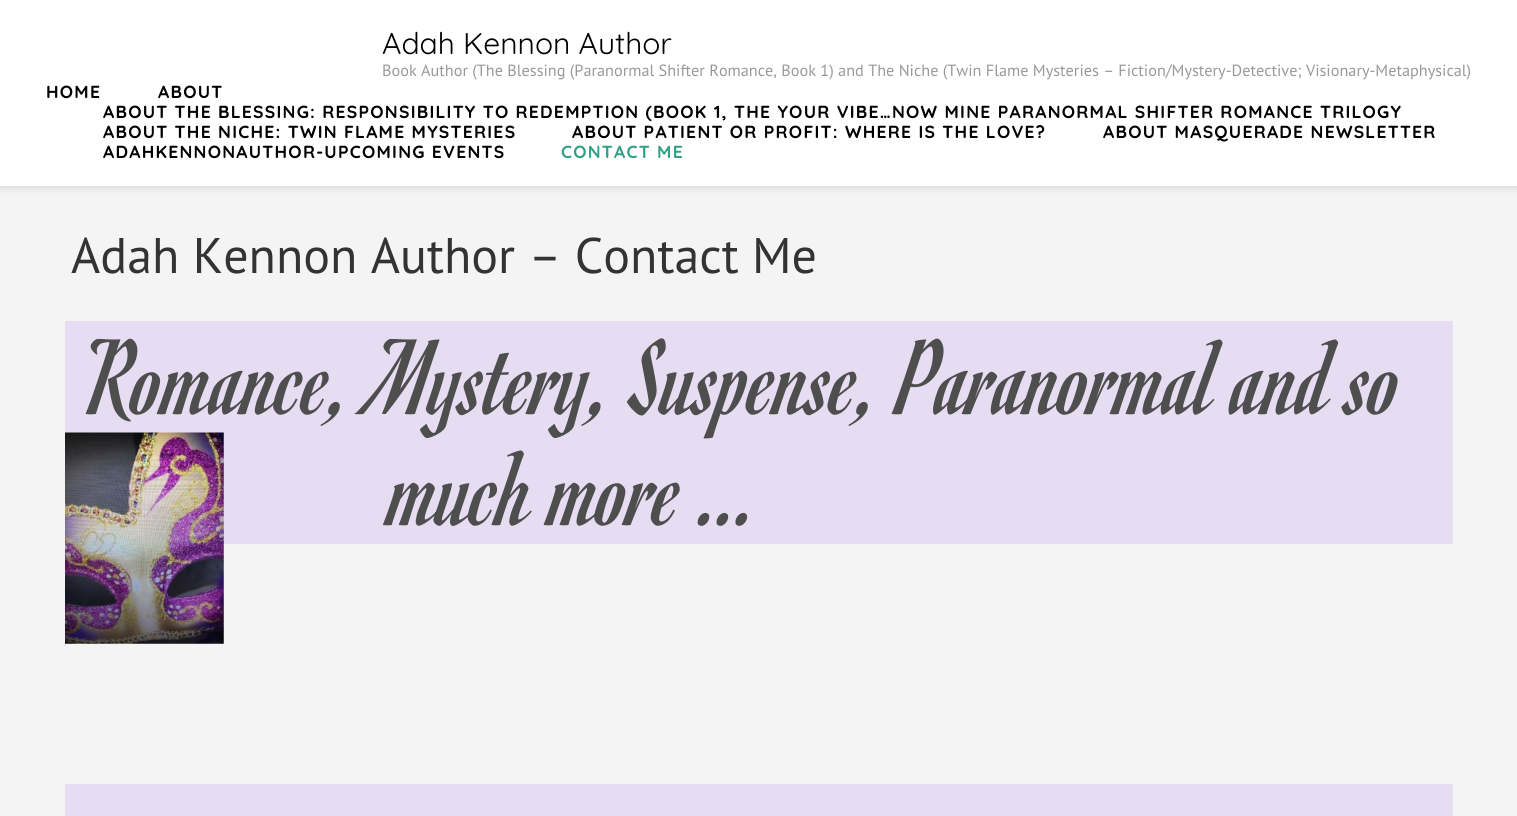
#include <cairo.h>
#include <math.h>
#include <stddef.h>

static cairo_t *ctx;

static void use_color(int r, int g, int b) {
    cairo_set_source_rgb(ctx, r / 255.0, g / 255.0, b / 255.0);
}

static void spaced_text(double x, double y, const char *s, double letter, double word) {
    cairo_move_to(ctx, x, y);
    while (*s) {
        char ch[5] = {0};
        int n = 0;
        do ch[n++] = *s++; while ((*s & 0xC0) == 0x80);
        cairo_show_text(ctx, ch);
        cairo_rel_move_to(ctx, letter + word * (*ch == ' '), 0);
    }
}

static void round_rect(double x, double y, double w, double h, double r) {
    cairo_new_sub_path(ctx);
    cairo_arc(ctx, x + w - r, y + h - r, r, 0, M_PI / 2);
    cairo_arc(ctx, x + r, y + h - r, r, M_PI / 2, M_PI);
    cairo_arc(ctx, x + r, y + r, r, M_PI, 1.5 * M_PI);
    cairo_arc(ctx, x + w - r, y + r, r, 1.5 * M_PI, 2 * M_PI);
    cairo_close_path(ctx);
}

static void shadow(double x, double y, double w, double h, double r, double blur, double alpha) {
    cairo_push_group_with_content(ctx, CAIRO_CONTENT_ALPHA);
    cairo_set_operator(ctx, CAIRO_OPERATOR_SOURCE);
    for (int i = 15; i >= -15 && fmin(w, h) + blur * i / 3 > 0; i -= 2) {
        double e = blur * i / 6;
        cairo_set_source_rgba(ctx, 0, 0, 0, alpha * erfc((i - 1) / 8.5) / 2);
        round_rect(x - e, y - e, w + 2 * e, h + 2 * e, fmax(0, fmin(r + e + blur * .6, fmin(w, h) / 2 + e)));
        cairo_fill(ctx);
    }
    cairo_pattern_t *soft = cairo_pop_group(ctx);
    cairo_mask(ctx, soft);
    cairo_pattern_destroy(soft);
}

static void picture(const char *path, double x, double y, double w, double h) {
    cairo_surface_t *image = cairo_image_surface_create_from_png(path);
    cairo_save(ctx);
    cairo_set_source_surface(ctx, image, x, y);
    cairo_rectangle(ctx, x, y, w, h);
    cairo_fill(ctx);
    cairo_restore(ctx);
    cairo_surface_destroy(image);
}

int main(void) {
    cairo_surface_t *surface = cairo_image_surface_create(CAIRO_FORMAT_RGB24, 1517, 816);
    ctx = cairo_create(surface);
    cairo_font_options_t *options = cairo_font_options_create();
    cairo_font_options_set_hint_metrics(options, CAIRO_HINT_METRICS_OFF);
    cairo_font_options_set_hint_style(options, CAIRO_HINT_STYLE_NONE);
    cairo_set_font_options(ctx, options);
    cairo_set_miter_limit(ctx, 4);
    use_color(244, 244, 244);
    cairo_paint(ctx);
    use_color(0, 0, 0);
    shadow(0, 3, 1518, 186, 0, 3, 0.1);
    use_color(255, 255, 255);
    cairo_rectangle(ctx, 0, 0, 1517, 186);
    cairo_fill(ctx);
    cairo_select_font_face(ctx, "Quicksand", CAIRO_FONT_SLANT_NORMAL, CAIRO_FONT_WEIGHT_NORMAL);
    cairo_set_font_size(ctx, 30);
    use_color(0, 0, 0);
    cairo_move_to(ctx, 382, 54);
    cairo_show_text(ctx, "Adah Kennon Author");
    cairo_select_font_face(ctx, "PT Sans", CAIRO_FONT_SLANT_NORMAL, CAIRO_FONT_WEIGHT_NORMAL);
    cairo_set_font_size(ctx, 16.25);
    use_color(153, 153, 153);
    cairo_move_to(ctx, 382, 76);
    cairo_show_text(ctx, "Book Author (The Blessing (Paranormal Shifter Romance, Book 1) and The Niche (Twin Flame Mysteries – Fiction/Mystery-Detective; Visionary-Metaphysical)");
    cairo_select_font_face(ctx, "Quicksand", CAIRO_FONT_SLANT_NORMAL, CAIRO_FONT_WEIGHT_BOLD);
    cairo_set_font_size(ctx, 17.5);
    use_color(0, 0, 0);
    spaced_text(46, 98, "HOME", 1.25, 0);
    spaced_text(158, 98, "ABOUT", 1.25, 0);
    spaced_text(103, 118, "ABOUT THE BLESSING: RESPONSIBILITY TO REDEMPTION (BOOK 1, THE YOUR VIBE…NOW MINE PARANORMAL SHIFTER ROMANCE TRILOGY", 1.25, 0);
    spaced_text(103, 138, "ABOUT THE NICHE: TWIN FLAME MYSTERIES", 1.25, 0);
    spaced_text(572, 138, "ABOUT PATIENT OR PROFIT: WHERE IS THE LOVE?", 1.25, 0);
    spaced_text(1103, 138, "ABOUT MASQUERADE NEWSLETTER", 1.25, 0);
    spaced_text(103, 158, "ADAHKENNONAUTHOR-UPCOMING EVENTS", 1.25, 0);
    use_color(48, 161, 134);
    spaced_text(561, 158, "CONTACT ME", 1.25, 0);
    cairo_select_font_face(ctx, "PT Sans", CAIRO_FONT_SLANT_NORMAL, CAIRO_FONT_WEIGHT_NORMAL);
    cairo_set_font_size(ctx, 50);
    use_color(51, 51, 51);
    cairo_move_to(ctx, 71, 273);
    cairo_show_text(ctx, "Adah Kennon Author – Contact Me");
    use_color(231, 221, 242);
    cairo_rectangle(ctx, 65, 321, 1388, 223);
    cairo_fill(ctx);
    picture("img1.png", 65, 432, 159, 212);
    cairo_select_font_face(ctx, "Romanesco", CAIRO_FONT_SLANT_NORMAL, CAIRO_FONT_WEIGHT_NORMAL);
    cairo_set_font_size(ctx, 111.25);
    use_color(78, 78, 78);
    cairo_move_to(ctx, 83, 414);
    cairo_show_text(ctx, "Romance, Mystery, Suspense, Paranormal and so");
    cairo_move_to(ctx, 391, 525);
    cairo_show_text(ctx, "much more …");
    use_color(231, 221, 242);
    cairo_rectangle(ctx, 65, 784, 1388, 32);
    cairo_fill(ctx);
    cairo_surface_write_to_png(surface, "result.png");
    cairo_font_options_destroy(options);
    cairo_destroy(ctx);
    cairo_surface_destroy(surface);
    return 0;
}
